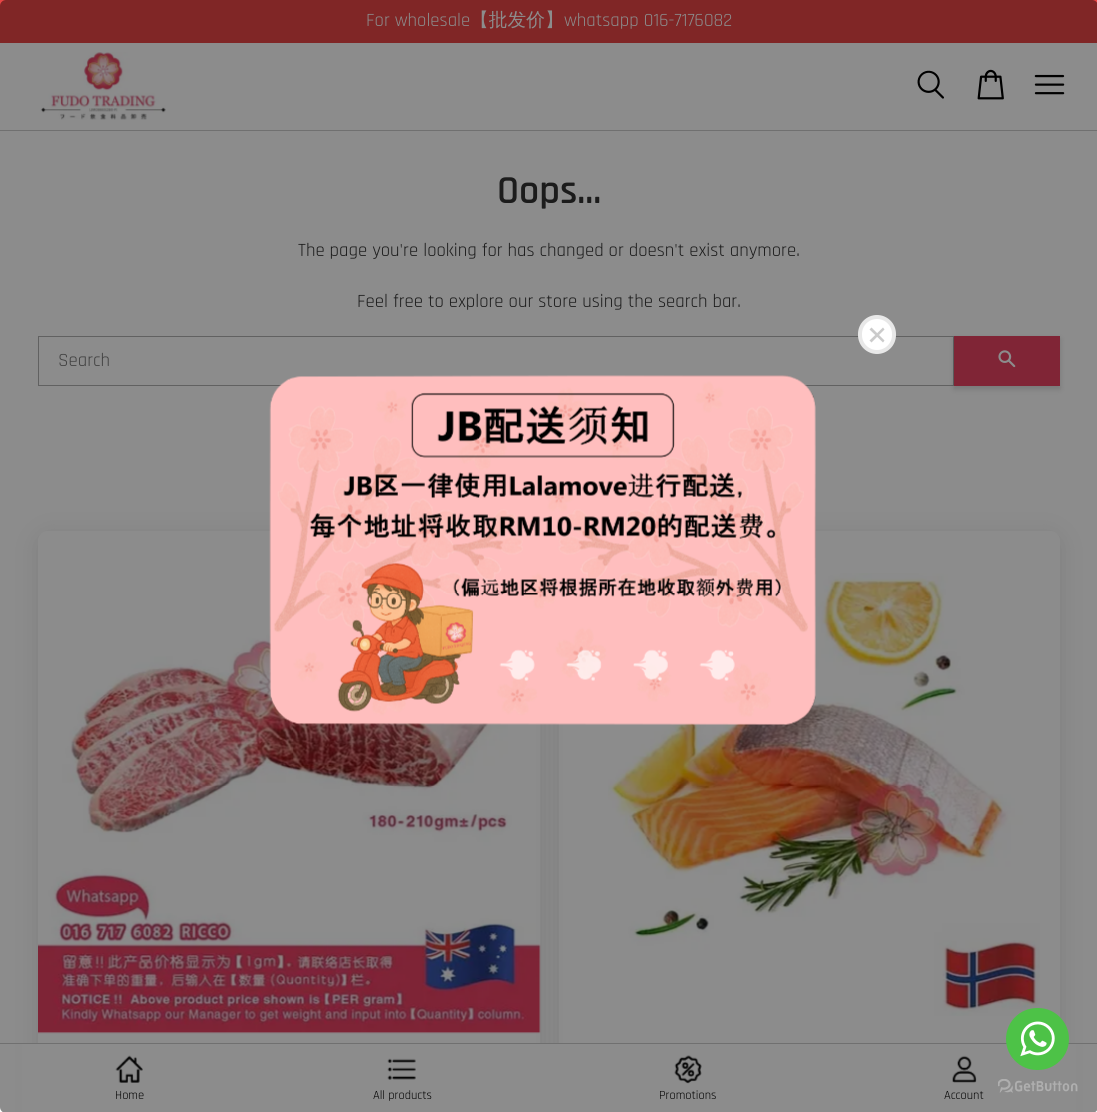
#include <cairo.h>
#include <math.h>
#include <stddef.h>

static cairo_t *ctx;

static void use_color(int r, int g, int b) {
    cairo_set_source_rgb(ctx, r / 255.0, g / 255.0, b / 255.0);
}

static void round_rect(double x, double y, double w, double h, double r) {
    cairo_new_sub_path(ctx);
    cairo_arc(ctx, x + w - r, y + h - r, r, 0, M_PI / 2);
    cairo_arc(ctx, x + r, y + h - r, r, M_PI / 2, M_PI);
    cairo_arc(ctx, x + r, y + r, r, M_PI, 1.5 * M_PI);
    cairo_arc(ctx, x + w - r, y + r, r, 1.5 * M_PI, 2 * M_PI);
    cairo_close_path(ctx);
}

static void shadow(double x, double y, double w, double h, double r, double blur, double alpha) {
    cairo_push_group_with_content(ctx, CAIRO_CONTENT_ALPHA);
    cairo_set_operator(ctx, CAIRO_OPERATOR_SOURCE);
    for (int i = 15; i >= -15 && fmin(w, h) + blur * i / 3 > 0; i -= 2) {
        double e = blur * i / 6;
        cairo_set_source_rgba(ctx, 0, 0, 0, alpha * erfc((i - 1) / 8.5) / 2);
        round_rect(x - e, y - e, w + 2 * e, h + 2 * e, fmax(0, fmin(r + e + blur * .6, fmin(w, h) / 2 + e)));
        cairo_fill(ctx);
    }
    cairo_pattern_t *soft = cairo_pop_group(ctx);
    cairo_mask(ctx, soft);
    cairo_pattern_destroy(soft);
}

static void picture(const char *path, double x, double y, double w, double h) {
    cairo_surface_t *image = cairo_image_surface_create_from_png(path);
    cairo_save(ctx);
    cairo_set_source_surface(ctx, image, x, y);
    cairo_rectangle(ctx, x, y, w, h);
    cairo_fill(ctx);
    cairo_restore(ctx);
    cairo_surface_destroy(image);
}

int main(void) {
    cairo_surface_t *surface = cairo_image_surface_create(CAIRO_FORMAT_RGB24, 1097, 1112);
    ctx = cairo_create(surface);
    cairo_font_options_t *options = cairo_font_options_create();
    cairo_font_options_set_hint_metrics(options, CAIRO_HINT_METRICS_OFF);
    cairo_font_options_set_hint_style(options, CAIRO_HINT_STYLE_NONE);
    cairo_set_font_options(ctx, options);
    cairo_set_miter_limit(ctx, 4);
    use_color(255, 255, 255);
    cairo_paint(ctx);
    use_color(233, 69, 69);
    cairo_rectangle(ctx, 0, 0, 1097, 43);
    cairo_fill(ctx);
    cairo_select_font_face(ctx, "Rajdhani", CAIRO_FONT_SLANT_NORMAL, CAIRO_FONT_WEIGHT_NORMAL);
    cairo_set_font_size(ctx, 18.75);
    use_color(255, 255, 255);
    cairo_move_to(ctx, 366, 26);
    cairo_show_text(ctx, "For wholesale");
    cairo_select_font_face(ctx, "WenQuanYi Zen Hei Medium", CAIRO_FONT_SLANT_NORMAL, CAIRO_FONT_WEIGHT_NORMAL);
    cairo_move_to(ctx, 470, 26);
    cairo_show_text(ctx, "【批发价】");
    cairo_select_font_face(ctx, "Rajdhani", CAIRO_FONT_SLANT_NORMAL, CAIRO_FONT_WEIGHT_NORMAL);
    cairo_move_to(ctx, 564, 26);
    cairo_show_text(ctx, "whatsapp 016-7176082");
    use_color(204, 204, 204);
    cairo_rectangle(ctx, 0, 130, 1097, 1);
    cairo_fill(ctx);
    picture("img2.png", 40, 52, 126, 68);
    picture("img3.png", 917, 70, 27, 29);
    picture("img4.png", 977, 69, 27, 31);
    picture("img5.png", 1034, 74, 31, 21);
    cairo_select_font_face(ctx, "Rajdhani SemiBold", CAIRO_FONT_SLANT_NORMAL, CAIRO_FONT_WEIGHT_NORMAL);
    cairo_set_font_size(ctx, 40);
    use_color(51, 51, 51);
    cairo_move_to(ctx, 497, 203);
    cairo_show_text(ctx, "Oops...");
    cairo_select_font_face(ctx, "Rajdhani", CAIRO_FONT_SLANT_NORMAL, CAIRO_FONT_WEIGHT_NORMAL);
    cairo_set_font_size(ctx, 18.75);
    cairo_move_to(ctx, 298, 256);
    cairo_show_text(ctx, "The page you're looking for has changed or doesn't exist anymore.");
    cairo_move_to(ctx, 357, 307);
    cairo_show_text(ctx, "Feel free to explore our store using the search bar.");
    cairo_rectangle(ctx, 38.5, 336.5, 915, 49);
    use_color(177, 177, 177);
    cairo_set_line_width(ctx, 1);
    cairo_stroke(ctx);
    use_color(117, 117, 117);
    cairo_move_to(ctx, 58, 366);
    cairo_show_text(ctx, "Search");
    use_color(0, 0, 0);
    shadow(954, 339, 106, 50, 0, 3, 0.15);
    use_color(233, 67, 98);
    cairo_rectangle(ctx, 954, 336, 106, 50);
    cairo_fill(ctx);
    picture("img6.png", 998, 350, 18, 18);
    cairo_save(ctx);
    cairo_set_fill_rule(ctx, CAIRO_FILL_RULE_EVEN_ODD);
    cairo_new_path(ctx);
    cairo_move_to(ctx, 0, 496);
    cairo_line_to(ctx, 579, 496);
    cairo_line_to(ctx, 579, 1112);
    cairo_line_to(ctx, 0, 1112);
    cairo_close_path(ctx);
    cairo_move_to(ctx, 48, 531);
    cairo_line_to(ctx, 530, 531);
    cairo_curve_to(ctx, 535.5, 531, 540, 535.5, 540, 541);
    cairo_line_to(ctx, 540, 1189);
    cairo_curve_to(ctx, 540, 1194.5, 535.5, 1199, 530, 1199);
    cairo_line_to(ctx, 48, 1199);
    cairo_curve_to(ctx, 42.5, 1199, 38, 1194.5, 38, 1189);
    cairo_line_to(ctx, 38, 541);
    cairo_curve_to(ctx, 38, 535.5, 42.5, 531, 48, 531);
    cairo_close_path(ctx);
    cairo_clip(ctx);
    use_color(0, 0, 0);
    shadow(38, 535, 502, 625, 10, 12.5, 0.1);
    cairo_restore(ctx);
    picture("img7.png", 38, 633, 503, 401);
    cairo_save(ctx);
    cairo_set_fill_rule(ctx, CAIRO_FILL_RULE_EVEN_ODD);
    cairo_new_path(ctx);
    cairo_move_to(ctx, 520, 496);
    cairo_line_to(ctx, 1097, 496);
    cairo_line_to(ctx, 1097, 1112);
    cairo_line_to(ctx, 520, 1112);
    cairo_close_path(ctx);
    cairo_move_to(ctx, 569, 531);
    cairo_line_to(ctx, 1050, 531);
    cairo_curve_to(ctx, 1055.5, 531, 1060, 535.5, 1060, 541);
    cairo_line_to(ctx, 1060, 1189);
    cairo_curve_to(ctx, 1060, 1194.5, 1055.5, 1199, 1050, 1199);
    cairo_line_to(ctx, 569, 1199);
    cairo_curve_to(ctx, 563.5, 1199, 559, 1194.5, 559, 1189);
    cairo_line_to(ctx, 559, 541);
    cairo_curve_to(ctx, 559, 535.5, 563.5, 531, 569, 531);
    cairo_close_path(ctx);
    cairo_clip(ctx);
    use_color(0, 0, 0);
    shadow(559, 535, 501, 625, 10, 12.5, 0.1);
    cairo_restore(ctx);
    picture("img8.png", 608, 573, 432, 443);
    use_color(255, 255, 255);
    cairo_rectangle(ctx, 22, 1044, 1054, 68);
    cairo_fill(ctx);
    use_color(204, 204, 204);
    cairo_rectangle(ctx, 0, 1043, 1097, 1);
    cairo_fill(ctx);
    picture("img9.png", 115, 1055, 28, 28);
    cairo_set_font_size(ctx, 12.5);
    use_color(0, 0, 0);
    cairo_move_to(ctx, 115, 1099);
    cairo_show_text(ctx, "Home");
    picture("img10.png", 387, 1058, 29, 22);
    cairo_move_to(ctx, 373, 1099);
    cairo_show_text(ctx, "All products");
    picture("img11.png", 674, 1055, 28, 29);
    cairo_move_to(ctx, 659, 1099);
    cairo_show_text(ctx, "Promotions");
    picture("img12.png", 952, 1055, 25, 28);
    cairo_move_to(ctx, 944, 1099);
    cairo_show_text(ctx, "Account");
    cairo_set_source_rgba(ctx, 0, 0, 0, 0.45);
    round_rect(0, 0, 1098, 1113, 6);
    cairo_fill(ctx);
    picture("img1.png", 269, 375, 547, 350);
    use_color(255, 255, 255);
    round_rect(860, 317, 34, 35, 17);
    cairo_fill_preserve(ctx);
    use_color(232, 232, 232);
    cairo_set_line_width(ctx, 4);
    cairo_stroke(ctx);
    use_color(203, 203, 203);
    cairo_new_path(ctx);
    cairo_move_to(ctx, 883, 327.5);
    cairo_line_to(ctx, 884.5, 329.5);
    cairo_line_to(ctx, 871.5, 342.5);
    cairo_line_to(ctx, 869.5, 340.5);
    cairo_close_path(ctx);
    cairo_fill(ctx);
    cairo_new_path(ctx);
    cairo_move_to(ctx, 869.5, 329.5);
    cairo_line_to(ctx, 871.5, 327.5);
    cairo_line_to(ctx, 884.5, 340.5);
    cairo_line_to(ctx, 883, 342.5);
    cairo_close_path(ctx);
    cairo_fill(ctx);
    use_color(77, 194, 71);
    round_rect(1006, 1008, 63, 62, 31);
    cairo_fill(ctx);
    picture("img13.png", 1020, 1021, 35, 36);
    picture("img14.png", 998, 1079, 80, 14);
    cairo_surface_write_to_png(surface, "result.png");
    cairo_font_options_destroy(options);
    cairo_destroy(ctx);
    cairo_surface_destroy(surface);
    return 0;
}
